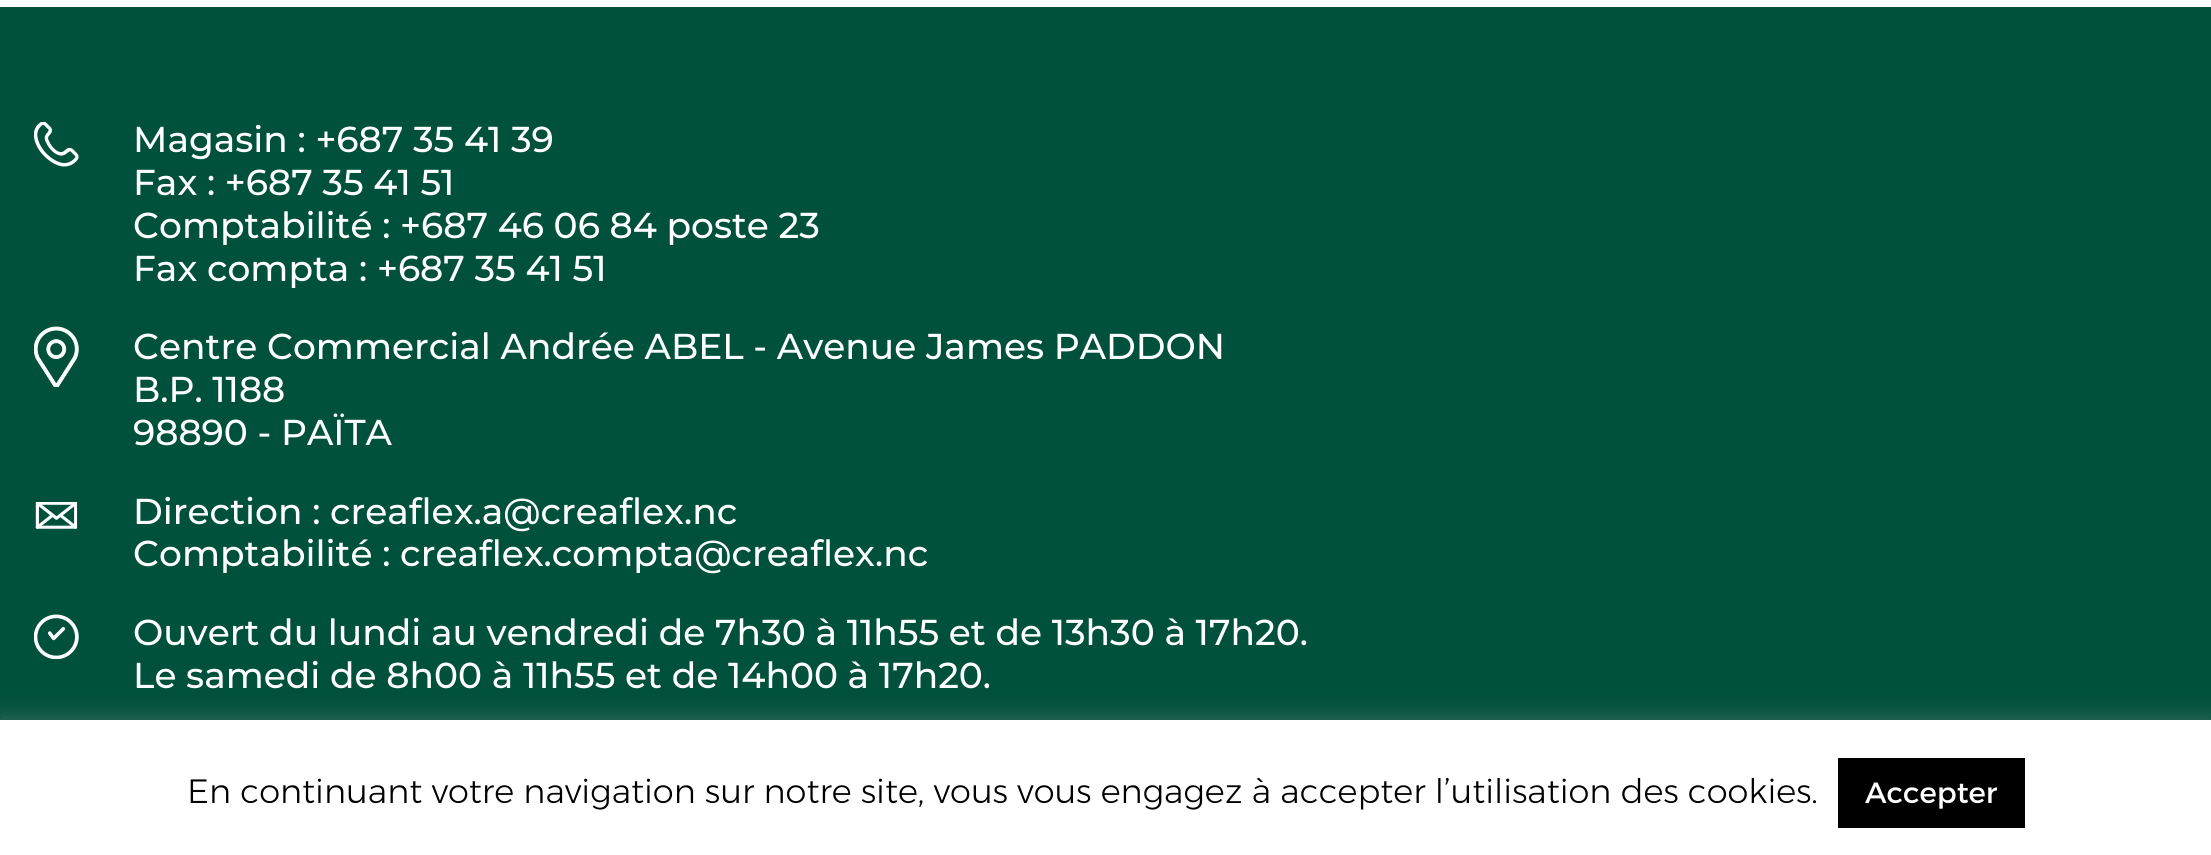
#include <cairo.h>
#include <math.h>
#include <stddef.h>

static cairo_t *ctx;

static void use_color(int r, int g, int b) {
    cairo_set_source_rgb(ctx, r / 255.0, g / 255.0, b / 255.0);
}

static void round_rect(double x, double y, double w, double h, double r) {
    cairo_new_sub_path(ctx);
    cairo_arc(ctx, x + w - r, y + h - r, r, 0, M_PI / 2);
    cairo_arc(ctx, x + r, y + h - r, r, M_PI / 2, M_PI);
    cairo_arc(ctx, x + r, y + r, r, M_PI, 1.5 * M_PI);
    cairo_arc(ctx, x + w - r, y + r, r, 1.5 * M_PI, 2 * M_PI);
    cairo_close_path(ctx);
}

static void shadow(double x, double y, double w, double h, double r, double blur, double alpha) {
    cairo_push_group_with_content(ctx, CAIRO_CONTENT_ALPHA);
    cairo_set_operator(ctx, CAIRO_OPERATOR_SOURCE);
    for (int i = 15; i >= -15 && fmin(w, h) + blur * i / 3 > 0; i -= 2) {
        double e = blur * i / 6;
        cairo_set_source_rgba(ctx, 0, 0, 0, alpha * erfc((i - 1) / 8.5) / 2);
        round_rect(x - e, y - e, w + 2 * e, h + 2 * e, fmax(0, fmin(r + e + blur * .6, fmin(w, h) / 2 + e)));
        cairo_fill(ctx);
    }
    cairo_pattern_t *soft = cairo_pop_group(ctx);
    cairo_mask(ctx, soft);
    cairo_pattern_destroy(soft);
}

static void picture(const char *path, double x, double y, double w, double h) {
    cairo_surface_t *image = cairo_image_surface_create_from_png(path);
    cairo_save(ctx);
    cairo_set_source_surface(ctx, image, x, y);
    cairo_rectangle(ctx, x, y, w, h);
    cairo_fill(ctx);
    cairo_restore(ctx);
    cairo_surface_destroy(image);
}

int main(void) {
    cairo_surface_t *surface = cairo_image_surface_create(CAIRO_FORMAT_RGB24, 2211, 855);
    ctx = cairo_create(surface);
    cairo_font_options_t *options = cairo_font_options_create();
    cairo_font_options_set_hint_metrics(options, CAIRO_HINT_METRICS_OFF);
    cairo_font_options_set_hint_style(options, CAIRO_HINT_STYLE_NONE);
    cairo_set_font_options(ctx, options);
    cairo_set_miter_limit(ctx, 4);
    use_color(255, 255, 255);
    cairo_paint(ctx);
    use_color(0, 81, 59);
    cairo_rectangle(ctx, 0, 7, 2211, 713);
    cairo_fill(ctx);
    picture("img1.png", 34, 122, 45, 45);
    cairo_select_font_face(ctx, "Montserrat Medium", CAIRO_FONT_SLANT_NORMAL, CAIRO_FONT_WEIGHT_NORMAL);
    cairo_set_font_size(ctx, 36);
    use_color(255, 255, 255);
    cairo_move_to(ctx, 133, 152);
    cairo_show_text(ctx, "Magasin : +687 35 41 39");
    cairo_move_to(ctx, 133, 195);
    cairo_show_text(ctx, "Fax : +687 35 41 51");
    cairo_move_to(ctx, 133, 238);
    cairo_show_text(ctx, "Comptabilité : +687 46 06 84 poste 23");
    cairo_move_to(ctx, 133, 281);
    cairo_show_text(ctx, "Fax compta : +687 35 41 51");
    picture("img2.png", 34, 326, 45, 61);
    cairo_move_to(ctx, 133, 359);
    cairo_show_text(ctx, "Centre Commercial Andrée ABEL - Avenue James PADDON");
    cairo_move_to(ctx, 133, 402);
    cairo_show_text(ctx, "B.P. 1188");
    cairo_move_to(ctx, 133, 445);
    cairo_show_text(ctx, "98890 - PAÏTA");
    picture("img3.png", 35, 502, 43, 27);
    cairo_move_to(ctx, 133, 524);
    cairo_show_text(ctx, "Direction : creaflex.a@creaflex.nc");
    cairo_move_to(ctx, 133, 566);
    cairo_show_text(ctx, "Comptabilité : creaflex.compta@creaflex.nc");
    picture("img4.png", 34, 614, 45, 45);
    cairo_move_to(ctx, 133, 645);
    cairo_show_text(ctx, "Ouvert du lundi au vendredi de 7h30 à 11h55 et de 13h30 à 17h20.");
    cairo_move_to(ctx, 133, 688);
    cairo_show_text(ctx, "Le samedi de 8h00 à 11h55 et de 14h00 à 17h20.");
    use_color(172, 171, 171);
    shadow(0, 718, 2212, 135, 0, 11, 0.3);
    use_color(255, 255, 255);
    cairo_rectangle(ctx, 0, 720, 2211, 135);
    cairo_fill(ctx);
    cairo_select_font_face(ctx, "Montserrat Light", CAIRO_FONT_SLANT_NORMAL, CAIRO_FONT_WEIGHT_NORMAL);
    cairo_set_font_size(ctx, 33.75);
    use_color(0, 0, 0);
    cairo_move_to(ctx, 187, 803);
    cairo_show_text(ctx, "En continuant votre navigation sur notre site, vous vous engagez à accepter l’utilisation des cookies.");
    cairo_rectangle(ctx, 1838, 758, 187, 70);
    cairo_fill(ctx);
    cairo_select_font_face(ctx, "Montserrat", CAIRO_FONT_SLANT_NORMAL, CAIRO_FONT_WEIGHT_NORMAL);
    cairo_set_font_size(ctx, 29.25);
    use_color(255, 255, 255);
    cairo_move_to(ctx, 1865, 803);
    cairo_show_text(ctx, "Accepter");
    cairo_surface_write_to_png(surface, "result.png");
    cairo_font_options_destroy(options);
    cairo_destroy(ctx);
    cairo_surface_destroy(surface);
    return 0;
}
